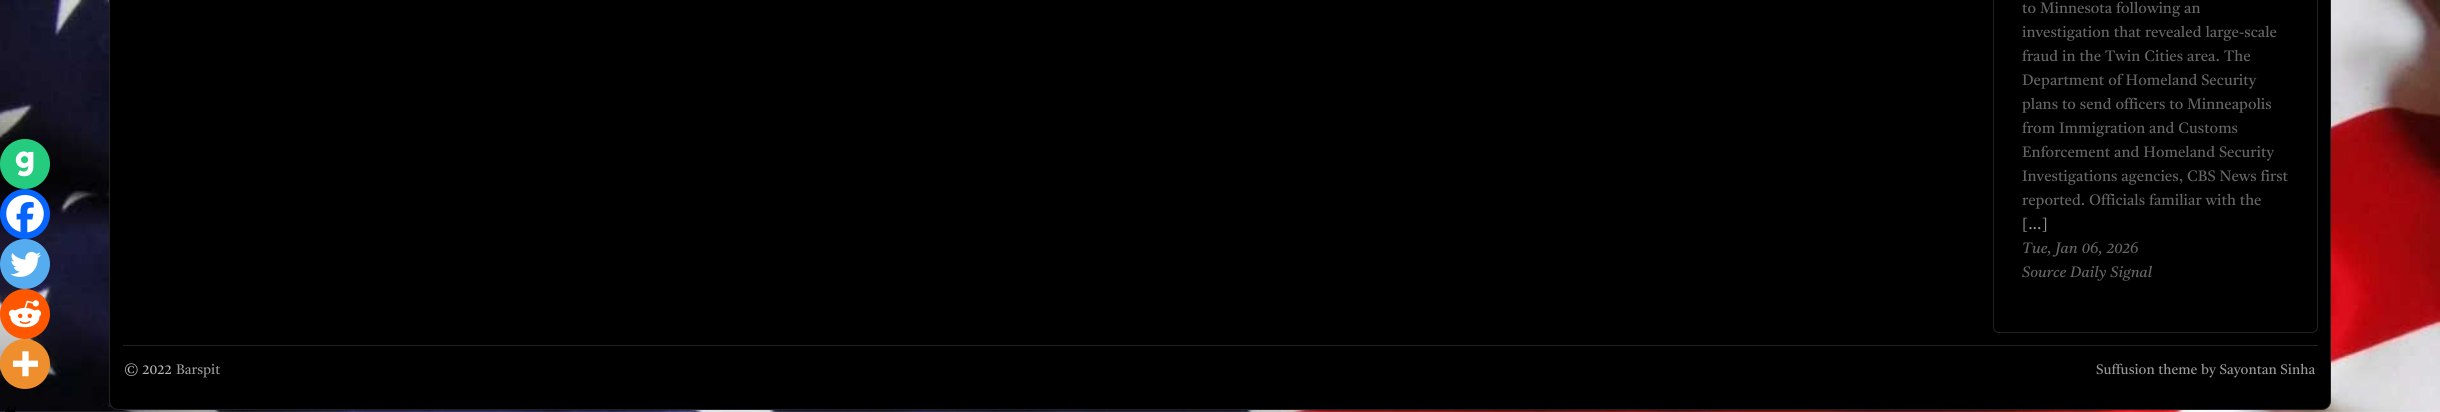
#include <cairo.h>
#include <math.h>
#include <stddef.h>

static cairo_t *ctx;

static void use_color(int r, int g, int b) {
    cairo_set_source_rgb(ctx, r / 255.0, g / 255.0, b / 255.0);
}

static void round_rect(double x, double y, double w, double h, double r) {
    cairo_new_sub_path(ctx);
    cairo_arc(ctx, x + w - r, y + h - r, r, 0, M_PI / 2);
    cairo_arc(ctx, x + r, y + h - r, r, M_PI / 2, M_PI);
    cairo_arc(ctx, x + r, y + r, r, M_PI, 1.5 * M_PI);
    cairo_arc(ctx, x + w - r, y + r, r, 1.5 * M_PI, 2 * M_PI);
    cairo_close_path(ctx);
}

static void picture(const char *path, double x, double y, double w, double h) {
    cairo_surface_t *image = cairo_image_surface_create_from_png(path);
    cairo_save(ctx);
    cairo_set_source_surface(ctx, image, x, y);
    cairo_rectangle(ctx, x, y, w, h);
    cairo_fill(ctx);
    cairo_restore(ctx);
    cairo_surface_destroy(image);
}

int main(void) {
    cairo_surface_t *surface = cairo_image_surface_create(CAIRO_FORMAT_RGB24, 2440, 412);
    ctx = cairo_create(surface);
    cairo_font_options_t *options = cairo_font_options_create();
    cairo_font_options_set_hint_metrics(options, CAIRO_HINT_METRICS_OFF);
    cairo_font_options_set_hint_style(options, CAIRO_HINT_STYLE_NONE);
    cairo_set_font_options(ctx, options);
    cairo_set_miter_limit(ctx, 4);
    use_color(255, 255, 255);
    cairo_paint(ctx);
    picture("img1.png", 0, 0, 2440, 412);
    use_color(0, 0, 0);
    round_rect(109.5, -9.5, 2221, 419, 8.5);
    cairo_fill_preserve(ctx);
    use_color(34, 34, 34);
    cairo_set_line_width(ctx, 1);
    cairo_stroke(ctx);
    use_color(37, 204, 128);
    cairo_arc(ctx, 25, 164, 25, 0, 2 * M_PI);
    cairo_fill(ctx);
    picture("img2.png", 15, 151, 19, 26);
    use_color(7, 101, 254);
    cairo_arc(ctx, 25, 214, 25, 0, 2 * M_PI);
    cairo_fill(ctx);
    picture("img3.png", 6, 195, 38, 38);
    use_color(85, 172, 238);
    cairo_arc(ctx, 25, 264, 25, 0, 2 * M_PI);
    cairo_fill(ctx);
    picture("img4.png", 10, 251, 31, 26);
    use_color(255, 87, 0);
    cairo_arc(ctx, 25, 314, 25, 0, 2 * M_PI);
    cairo_fill(ctx);
    picture("img5.png", 8, 300, 34, 28);
    use_color(238, 142, 45);
    cairo_arc(ctx, 25, 364, 25, 0, 2 * M_PI);
    cairo_fill(ctx);
    picture("img6.png", 12, 351, 26, 26);
    picture("img7.png", 5, 406, 11, 6);
    round_rect(1993.5, -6.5, 324, 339, 5.5);
    use_color(34, 34, 34);
    cairo_stroke(ctx);
    cairo_select_font_face(ctx, "Tiro Devanagari Sanskrit", CAIRO_FONT_SLANT_NORMAL, CAIRO_FONT_WEIGHT_NORMAL);
    cairo_set_font_size(ctx, 15);
    use_color(102, 102, 102);
    cairo_move_to(ctx, 2022, 13);
    cairo_show_text(ctx, "to Minnesota following an");
    cairo_move_to(ctx, 2022, 37);
    cairo_show_text(ctx, "investigation that revealed large-scale");
    cairo_move_to(ctx, 2022, 61);
    cairo_show_text(ctx, "fraud in the Twin Cities area.");
    cairo_move_to(ctx, 2224, 61);
    cairo_show_text(ctx, "The");
    cairo_move_to(ctx, 2022, 85);
    cairo_show_text(ctx, "Department of Homeland Security");
    cairo_move_to(ctx, 2022, 109);
    cairo_show_text(ctx, "plans to send officers to Minneapolis");
    cairo_move_to(ctx, 2022, 133);
    cairo_show_text(ctx, "from Immigration and Customs");
    cairo_move_to(ctx, 2022, 157);
    cairo_show_text(ctx, "Enforcement and Homeland Security");
    cairo_move_to(ctx, 2022, 181);
    cairo_show_text(ctx, "Investigations agencies, CBS News first");
    cairo_move_to(ctx, 2022, 205);
    cairo_show_text(ctx, "reported.");
    cairo_move_to(ctx, 2089, 205);
    cairo_show_text(ctx, "Officials familiar with the");
    use_color(153, 153, 153);
    cairo_move_to(ctx, 2022, 229);
    cairo_show_text(ctx, "[...]");
    cairo_select_font_face(ctx, "Tiro Devanagari Sanskrit", CAIRO_FONT_SLANT_ITALIC, CAIRO_FONT_WEIGHT_NORMAL);
    use_color(102, 102, 102);
    cairo_move_to(ctx, 2022, 253);
    cairo_show_text(ctx, "Tue, Jan 06, 2026");
    cairo_move_to(ctx, 2022, 277);
    cairo_show_text(ctx, "Source Daily Signal");
    use_color(34, 34, 34);
    cairo_rectangle(ctx, 123, 345, 2195, 1);
    cairo_fill(ctx);
    cairo_select_font_face(ctx, "Tiro Devanagari Sanskrit", CAIRO_FONT_SLANT_NORMAL, CAIRO_FONT_WEIGHT_NORMAL);
    cairo_set_font_size(ctx, 13.75);
    use_color(184, 184, 184);
    cairo_move_to(ctx, 124, 374);
    cairo_show_text(ctx, "© 2022");
    use_color(153, 153, 153);
    cairo_move_to(ctx, 176, 374);
    cairo_show_text(ctx, "Barspit");
    cairo_move_to(ctx, 2096, 374);
    cairo_show_text(ctx, "Suffusion theme by Sayontan Sinha");
    cairo_surface_write_to_png(surface, "result.png");
    cairo_font_options_destroy(options);
    cairo_destroy(ctx);
    cairo_surface_destroy(surface);
    return 0;
}
